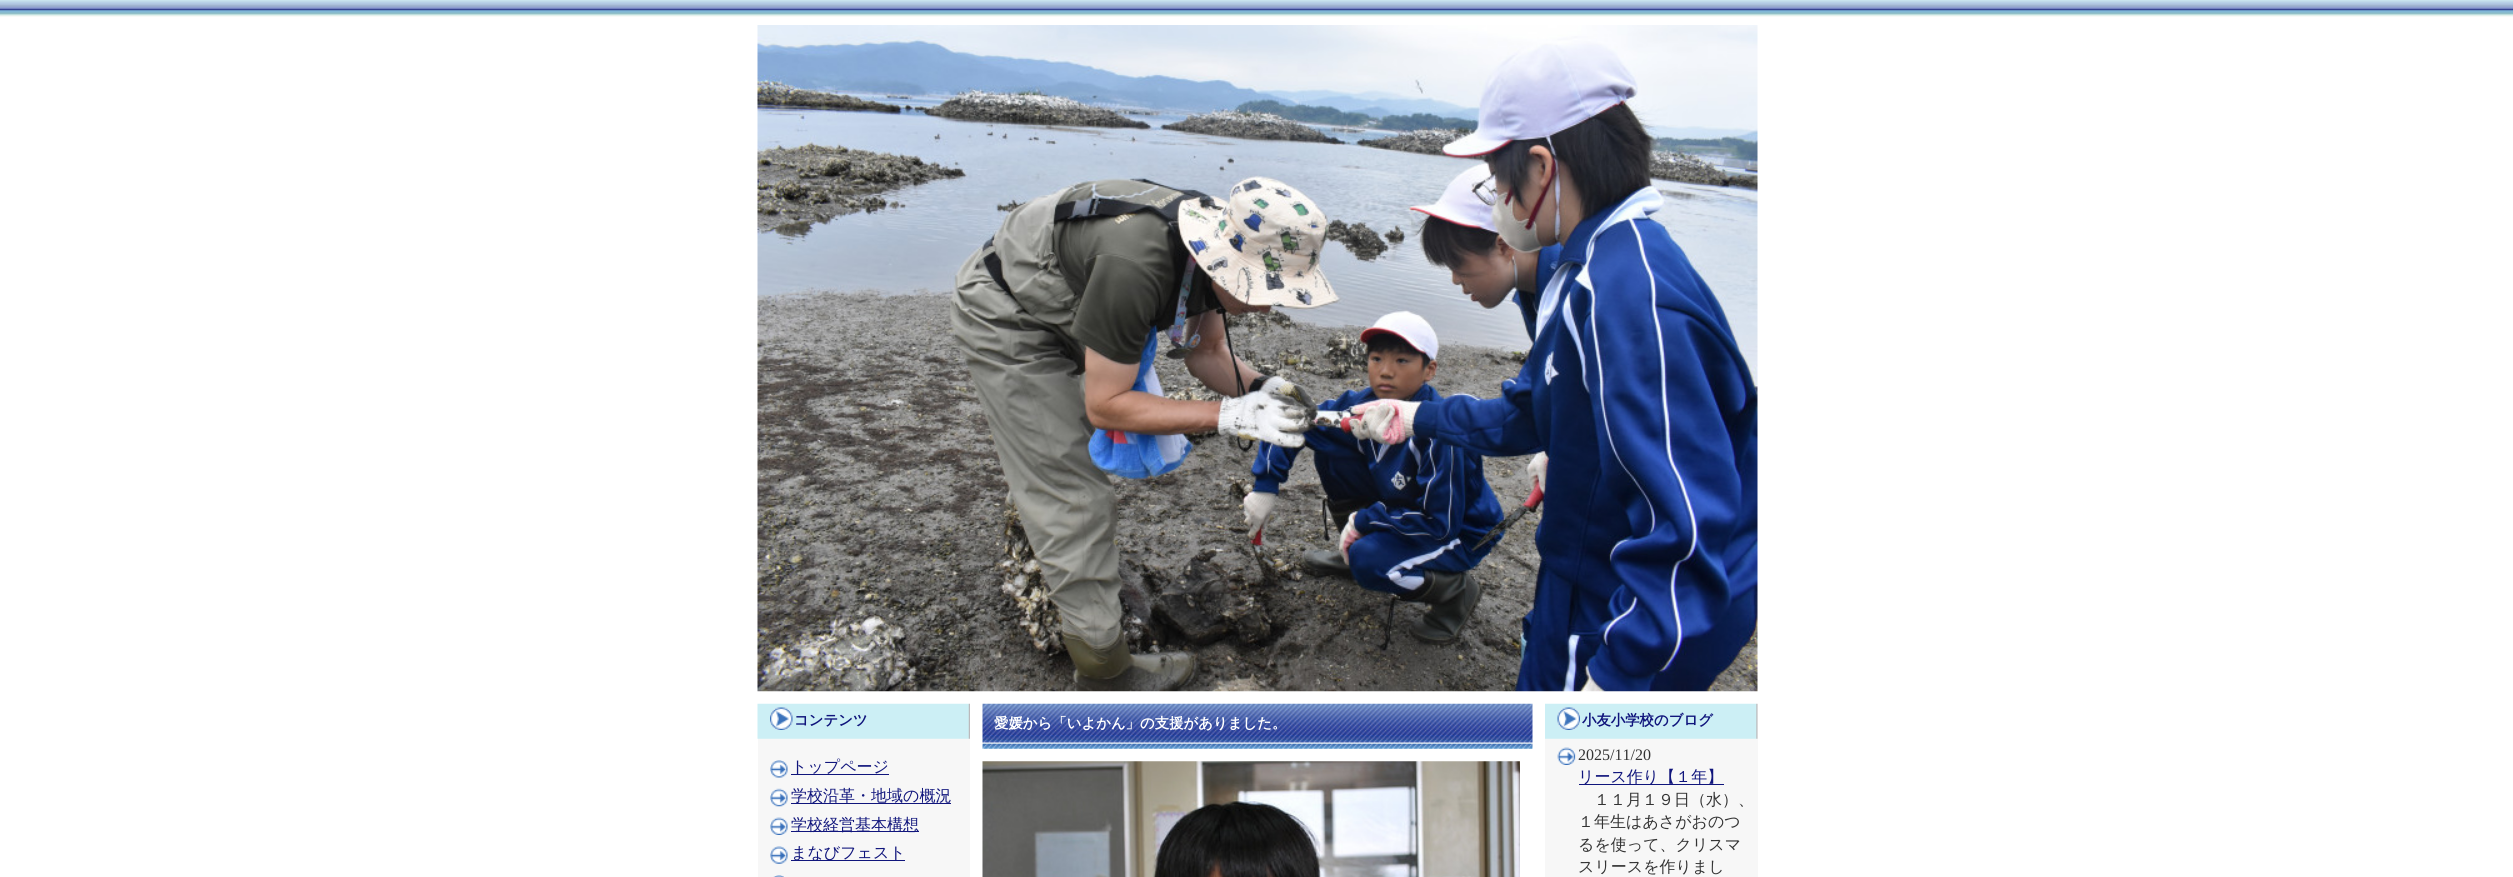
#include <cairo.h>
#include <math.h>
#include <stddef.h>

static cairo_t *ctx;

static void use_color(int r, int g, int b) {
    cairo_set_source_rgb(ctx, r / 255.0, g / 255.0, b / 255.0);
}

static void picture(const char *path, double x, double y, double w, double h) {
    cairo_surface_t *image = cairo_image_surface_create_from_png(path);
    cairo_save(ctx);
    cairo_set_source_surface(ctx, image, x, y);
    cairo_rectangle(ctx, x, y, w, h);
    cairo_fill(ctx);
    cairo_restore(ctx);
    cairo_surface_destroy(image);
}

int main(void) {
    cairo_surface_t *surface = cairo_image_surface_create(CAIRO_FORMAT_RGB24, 2513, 877);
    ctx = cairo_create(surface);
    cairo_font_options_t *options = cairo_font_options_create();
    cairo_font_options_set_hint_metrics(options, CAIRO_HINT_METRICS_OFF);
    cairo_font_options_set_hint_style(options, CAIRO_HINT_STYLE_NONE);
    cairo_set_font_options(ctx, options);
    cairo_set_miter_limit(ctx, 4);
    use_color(255, 255, 255);
    cairo_paint(ctx);
    picture("img1.png", 0, 0, 2513, 17);
    picture("img2.png", 757, 25, 1001, 667);
    use_color(247, 247, 247);
    cairo_rectangle(ctx, 758, 738, 212, 139);
    cairo_fill(ctx);
    picture("img3.png", 757, 703, 213, 36);
    picture("img4.png", 770, 707, 23, 23);
    cairo_select_font_face(ctx, "WenQuanYi Zen Hei", CAIRO_FONT_SLANT_NORMAL, CAIRO_FONT_WEIGHT_BOLD);
    cairo_set_font_size(ctx, 14.4);
    use_color(16, 21, 124);
    cairo_move_to(ctx, 794, 725);
    cairo_show_text(ctx, "コンテンツ");
    picture("img5.png", 770, 760, 18, 18);
    cairo_select_font_face(ctx, "WenQuanYi Zen Hei Medium", CAIRO_FONT_SLANT_NORMAL, CAIRO_FONT_WEIGHT_NORMAL);
    cairo_set_font_size(ctx, 16);
    cairo_move_to(ctx, 791, 772);
    cairo_show_text(ctx, "トップページ");
    cairo_rectangle(ctx, 791, 774, 98, 1);
    cairo_fill(ctx);
    picture("img6.png", 770, 788, 18, 19);
    cairo_rectangle(ctx, 791, 803, 160, 1);
    cairo_fill(ctx);
    cairo_move_to(ctx, 791, 801);
    cairo_show_text(ctx, "学校沿革・地域の概況");
    picture("img7.png", 770, 817, 18, 18);
    cairo_rectangle(ctx, 791, 831, 128, 1);
    cairo_fill(ctx);
    cairo_move_to(ctx, 791, 830);
    cairo_show_text(ctx, "学校経営基本構想");
    picture("img8.png", 770, 846, 18, 18);
    cairo_rectangle(ctx, 791, 860, 114, 1);
    cairo_fill(ctx);
    cairo_move_to(ctx, 791, 858);
    cairo_show_text(ctx, "まなびフェスト");
    picture("img9.png", 773, 875, 11, 2);
    picture("img10.png", 982, 703, 551, 46);
    cairo_select_font_face(ctx, "WenQuanYi Zen Hei", CAIRO_FONT_SLANT_NORMAL, CAIRO_FONT_WEIGHT_BOLD);
    cairo_set_font_size(ctx, 14.4);
    use_color(255, 255, 255);
    cairo_move_to(ctx, 994, 728);
    cairo_show_text(ctx, "愛媛から「いよかん」の支援がありました。");
    picture("img11.png", 982, 761, 538, 116);
    use_color(247, 247, 247);
    cairo_rectangle(ctx, 1545, 704, 213, 173);
    cairo_fill(ctx);
    picture("img12.png", 1545, 703, 213, 36);
    picture("img13.png", 1557, 707, 23, 23);
    use_color(16, 21, 124);
    cairo_move_to(ctx, 1582, 725);
    cairo_show_text(ctx, "小友小学校のブログ");
    picture("img14.png", 1557, 747, 19, 18);
    cairo_select_font_face(ctx, "Liberation Serif", CAIRO_FONT_SLANT_NORMAL, CAIRO_FONT_WEIGHT_NORMAL);
    cairo_set_font_size(ctx, 16);
    use_color(51, 51, 51);
    cairo_move_to(ctx, 1578, 760);
    cairo_show_text(ctx, "2025/11/20");
    use_color(16, 21, 124);
    cairo_rectangle(ctx, 1579, 784, 145, 1);
    cairo_fill(ctx);
    cairo_select_font_face(ctx, "WenQuanYi Zen Hei Medium", CAIRO_FONT_SLANT_NORMAL, CAIRO_FONT_WEIGHT_NORMAL);
    cairo_move_to(ctx, 1578, 782);
    cairo_show_text(ctx, "リース作り【１年】");
    use_color(51, 51, 51);
    cairo_move_to(ctx, 1594, 805);
    cairo_show_text(ctx, "１１月１９日（水）、");
    cairo_move_to(ctx, 1578, 827);
    cairo_show_text(ctx, "１年生はあさがおのつ");
    cairo_move_to(ctx, 1578, 850);
    cairo_show_text(ctx, "るを使って、クリスマ");
    cairo_move_to(ctx, 1578, 872);
    cairo_show_text(ctx, "スリースを作りまし");
    cairo_surface_write_to_png(surface, "result.png");
    cairo_font_options_destroy(options);
    cairo_destroy(ctx);
    cairo_surface_destroy(surface);
    return 0;
}
